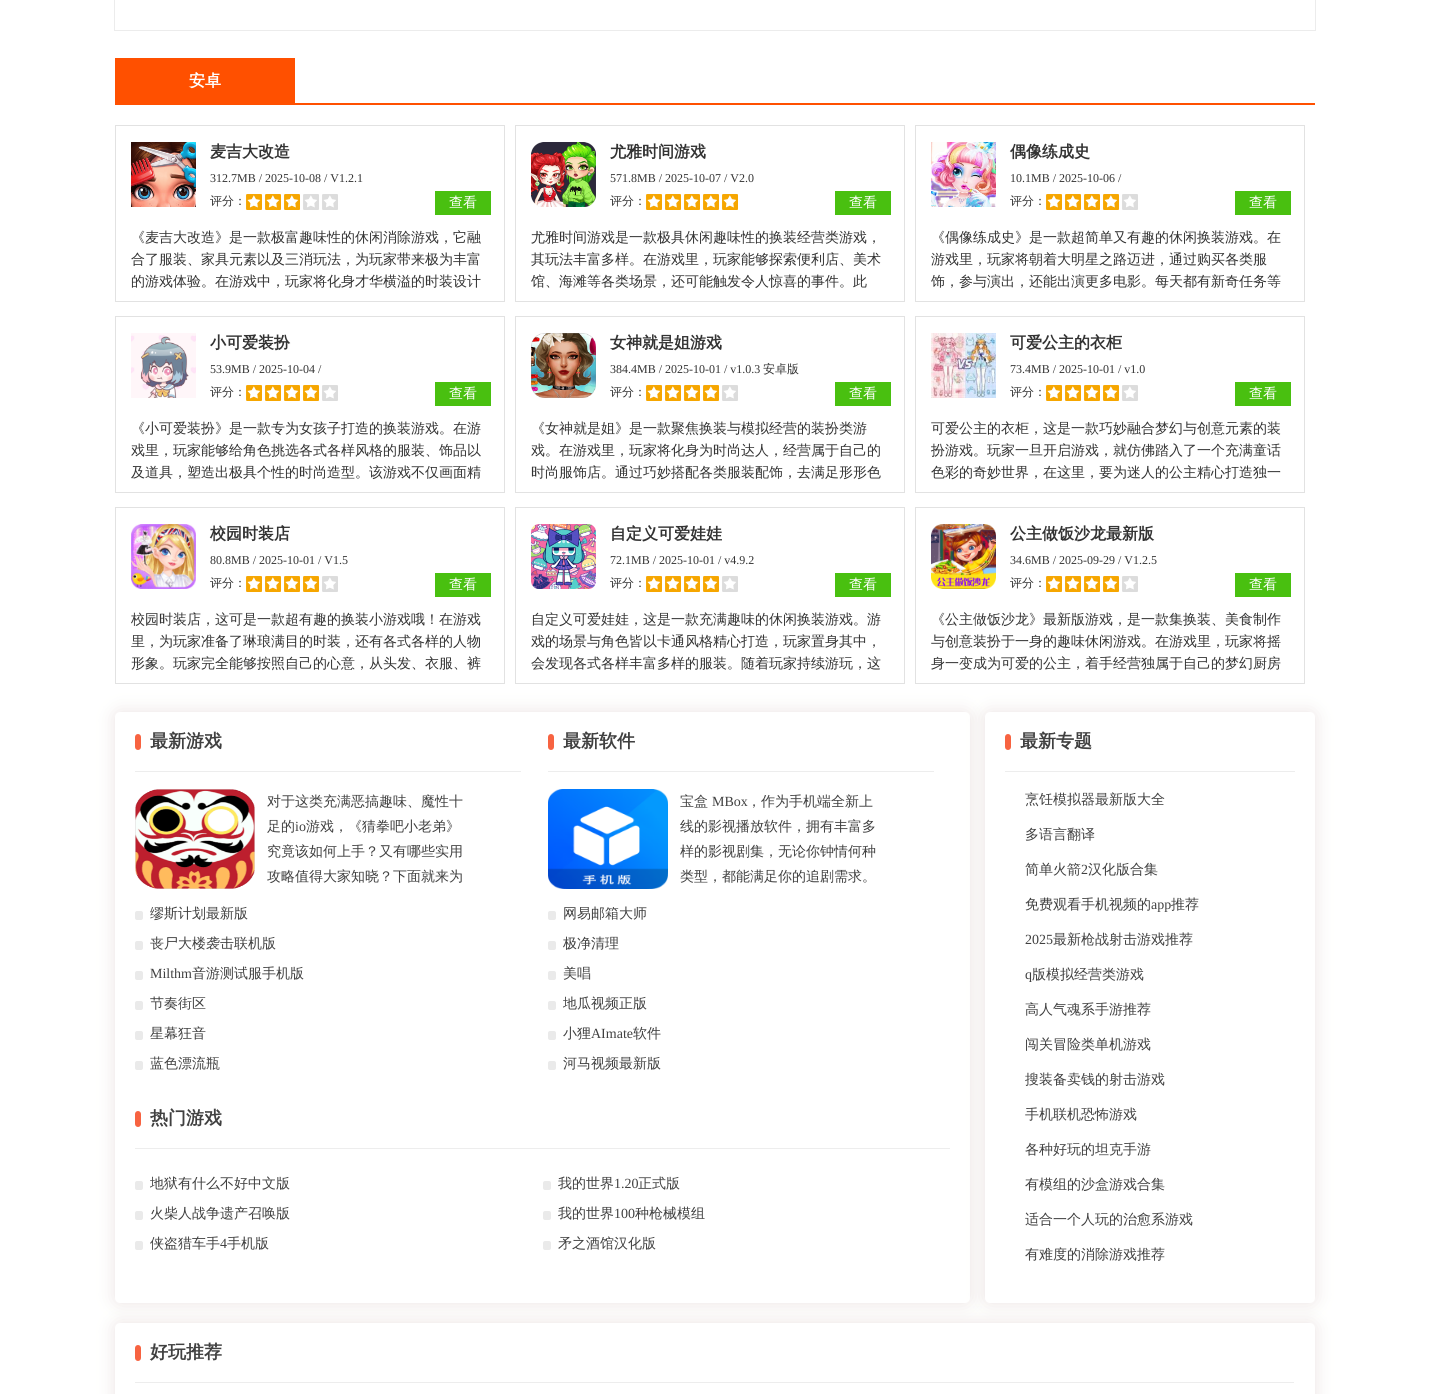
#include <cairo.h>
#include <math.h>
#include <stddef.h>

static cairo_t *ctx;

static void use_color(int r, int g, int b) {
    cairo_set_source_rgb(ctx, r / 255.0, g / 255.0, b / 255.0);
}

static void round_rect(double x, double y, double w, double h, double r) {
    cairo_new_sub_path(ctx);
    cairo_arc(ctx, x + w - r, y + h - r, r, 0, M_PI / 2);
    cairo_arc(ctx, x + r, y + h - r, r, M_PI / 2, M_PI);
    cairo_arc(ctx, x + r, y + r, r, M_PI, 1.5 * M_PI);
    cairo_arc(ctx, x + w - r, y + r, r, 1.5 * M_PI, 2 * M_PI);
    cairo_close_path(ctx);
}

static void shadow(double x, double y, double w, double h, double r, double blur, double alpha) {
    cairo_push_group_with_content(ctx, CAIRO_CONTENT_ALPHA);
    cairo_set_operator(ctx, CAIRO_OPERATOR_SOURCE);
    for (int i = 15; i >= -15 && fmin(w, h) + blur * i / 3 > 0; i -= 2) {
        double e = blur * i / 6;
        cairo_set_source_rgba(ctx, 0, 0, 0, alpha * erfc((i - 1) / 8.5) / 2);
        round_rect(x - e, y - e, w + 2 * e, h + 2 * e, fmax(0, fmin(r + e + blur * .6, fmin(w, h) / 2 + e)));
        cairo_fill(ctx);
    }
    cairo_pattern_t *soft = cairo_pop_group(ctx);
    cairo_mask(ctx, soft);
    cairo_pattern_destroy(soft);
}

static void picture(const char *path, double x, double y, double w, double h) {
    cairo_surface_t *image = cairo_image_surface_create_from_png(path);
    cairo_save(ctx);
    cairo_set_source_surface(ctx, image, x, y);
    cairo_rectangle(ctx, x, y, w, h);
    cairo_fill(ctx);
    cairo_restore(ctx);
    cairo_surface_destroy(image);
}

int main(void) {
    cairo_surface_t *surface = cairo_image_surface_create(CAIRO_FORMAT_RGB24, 1430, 1394);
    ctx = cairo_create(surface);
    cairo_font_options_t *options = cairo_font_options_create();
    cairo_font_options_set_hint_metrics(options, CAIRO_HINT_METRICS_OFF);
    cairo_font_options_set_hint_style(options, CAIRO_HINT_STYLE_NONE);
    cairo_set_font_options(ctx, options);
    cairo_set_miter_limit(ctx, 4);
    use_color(255, 255, 255);
    cairo_paint(ctx);
    cairo_rectangle(ctx, 114.5, -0.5, 1201, 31);
    use_color(236, 236, 236);
    cairo_set_line_width(ctx, 1);
    cairo_stroke(ctx);
    use_color(255, 80, 0);
    cairo_rectangle(ctx, 115, 103, 1200, 2);
    cairo_fill(ctx);
    cairo_rectangle(ctx, 115, 58, 180, 45);
    cairo_fill(ctx);
    cairo_select_font_face(ctx, "WenQuanYi Zen Hei", CAIRO_FONT_SLANT_NORMAL, CAIRO_FONT_WEIGHT_BOLD);
    cairo_set_font_size(ctx, 16);
    use_color(255, 255, 255);
    cairo_move_to(ctx, 189, 86);
    cairo_show_text(ctx, "安卓");
    cairo_rectangle(ctx, 115.5, 125.5, 389, 176);
    use_color(226, 226, 226);
    cairo_stroke(ctx);
    picture("img1.png", 131, 142, 65, 65);
    use_color(51, 51, 51);
    cairo_move_to(ctx, 210, 157);
    cairo_show_text(ctx, "麦吉大改造");
    cairo_select_font_face(ctx, "Liberation Serif", CAIRO_FONT_SLANT_NORMAL, CAIRO_FONT_WEIGHT_NORMAL);
    cairo_set_font_size(ctx, 12);
    cairo_move_to(ctx, 210, 182);
    cairo_show_text(ctx, "312.7MB / 2025-10-08 / V1.2.1");
    cairo_select_font_face(ctx, "WenQuanYi Zen Hei Medium", CAIRO_FONT_SLANT_NORMAL, CAIRO_FONT_WEIGHT_NORMAL);
    cairo_move_to(ctx, 210, 205);
    cairo_show_text(ctx, "评分：");
    picture("img2.png", 246, 194, 92, 16);
    use_color(73, 192, 16);
    cairo_rectangle(ctx, 435, 191, 56, 24);
    cairo_fill(ctx);
    cairo_set_font_size(ctx, 14);
    use_color(255, 255, 255);
    cairo_move_to(ctx, 449, 207);
    cairo_show_text(ctx, "查看");
    use_color(51, 51, 51);
    cairo_move_to(ctx, 131, 242);
    cairo_show_text(ctx, "《麦吉大改造》是一款极富趣味性的休闲消除游戏，它融");
    cairo_move_to(ctx, 131, 264);
    cairo_show_text(ctx, "合了服装、家具元素以及三消玩法，为玩家带来极为丰富");
    cairo_move_to(ctx, 131, 286);
    cairo_show_text(ctx, "的游戏体验。在游戏中，玩家将化身才华横溢的时装设计");
    cairo_rectangle(ctx, 515.5, 125.5, 389, 176);
    use_color(226, 226, 226);
    cairo_stroke(ctx);
    picture("img3.png", 531, 142, 65, 65);
    cairo_select_font_face(ctx, "WenQuanYi Zen Hei", CAIRO_FONT_SLANT_NORMAL, CAIRO_FONT_WEIGHT_BOLD);
    cairo_set_font_size(ctx, 16);
    use_color(51, 51, 51);
    cairo_move_to(ctx, 610, 157);
    cairo_show_text(ctx, "尤雅时间游戏");
    cairo_select_font_face(ctx, "Liberation Serif", CAIRO_FONT_SLANT_NORMAL, CAIRO_FONT_WEIGHT_NORMAL);
    cairo_set_font_size(ctx, 12);
    cairo_move_to(ctx, 610, 182);
    cairo_show_text(ctx, "571.8MB / 2025-10-07 / V2.0");
    cairo_select_font_face(ctx, "WenQuanYi Zen Hei Medium", CAIRO_FONT_SLANT_NORMAL, CAIRO_FONT_WEIGHT_NORMAL);
    cairo_move_to(ctx, 610, 205);
    cairo_show_text(ctx, "评分：");
    picture("img4.png", 646, 194, 92, 16);
    use_color(73, 192, 16);
    cairo_rectangle(ctx, 835, 191, 56, 24);
    cairo_fill(ctx);
    cairo_set_font_size(ctx, 14);
    use_color(255, 255, 255);
    cairo_move_to(ctx, 849, 207);
    cairo_show_text(ctx, "查看");
    use_color(51, 51, 51);
    cairo_move_to(ctx, 531, 242);
    cairo_show_text(ctx, "尤雅时间游戏是一款极具休闲趣味性的换装经营类游戏，");
    cairo_move_to(ctx, 531, 264);
    cairo_show_text(ctx, "其玩法丰富多样。在游戏里，玩家能够探索便利店、美术");
    cairo_move_to(ctx, 531, 286);
    cairo_show_text(ctx, "馆、海滩等各类场景，还可能触发令人惊喜的事件。此");
    cairo_rectangle(ctx, 915.5, 125.5, 389, 176);
    use_color(226, 226, 226);
    cairo_stroke(ctx);
    picture("img5.png", 931, 142, 65, 65);
    cairo_select_font_face(ctx, "WenQuanYi Zen Hei", CAIRO_FONT_SLANT_NORMAL, CAIRO_FONT_WEIGHT_BOLD);
    cairo_set_font_size(ctx, 16);
    use_color(51, 51, 51);
    cairo_move_to(ctx, 1010, 157);
    cairo_show_text(ctx, "偶像练成史");
    cairo_select_font_face(ctx, "Liberation Serif", CAIRO_FONT_SLANT_NORMAL, CAIRO_FONT_WEIGHT_NORMAL);
    cairo_set_font_size(ctx, 12);
    cairo_move_to(ctx, 1010, 182);
    cairo_show_text(ctx, "10.1MB / 2025-10-06 /");
    cairo_select_font_face(ctx, "WenQuanYi Zen Hei Medium", CAIRO_FONT_SLANT_NORMAL, CAIRO_FONT_WEIGHT_NORMAL);
    cairo_move_to(ctx, 1010, 205);
    cairo_show_text(ctx, "评分：");
    picture("img6.png", 1046, 194, 92, 16);
    use_color(73, 192, 16);
    cairo_rectangle(ctx, 1235, 191, 56, 24);
    cairo_fill(ctx);
    cairo_set_font_size(ctx, 14);
    use_color(255, 255, 255);
    cairo_move_to(ctx, 1249, 207);
    cairo_show_text(ctx, "查看");
    use_color(51, 51, 51);
    cairo_move_to(ctx, 931, 242);
    cairo_show_text(ctx, "《偶像练成史》是一款超简单又有趣的休闲换装游戏。在");
    cairo_move_to(ctx, 931, 264);
    cairo_show_text(ctx, "游戏里，玩家将朝着大明星之路迈进，通过购买各类服");
    cairo_move_to(ctx, 931, 286);
    cairo_show_text(ctx, "饰，参与演出，还能出演更多电影。每天都有新奇任务等");
    cairo_rectangle(ctx, 115.5, 316.5, 389, 176);
    use_color(226, 226, 226);
    cairo_stroke(ctx);
    picture("img7.png", 131, 333, 65, 65);
    cairo_select_font_face(ctx, "WenQuanYi Zen Hei", CAIRO_FONT_SLANT_NORMAL, CAIRO_FONT_WEIGHT_BOLD);
    cairo_set_font_size(ctx, 16);
    use_color(51, 51, 51);
    cairo_move_to(ctx, 210, 348);
    cairo_show_text(ctx, "小可爱装扮");
    cairo_select_font_face(ctx, "Liberation Serif", CAIRO_FONT_SLANT_NORMAL, CAIRO_FONT_WEIGHT_NORMAL);
    cairo_set_font_size(ctx, 12);
    cairo_move_to(ctx, 210, 373);
    cairo_show_text(ctx, "53.9MB / 2025-10-04 /");
    cairo_select_font_face(ctx, "WenQuanYi Zen Hei Medium", CAIRO_FONT_SLANT_NORMAL, CAIRO_FONT_WEIGHT_NORMAL);
    cairo_move_to(ctx, 210, 396);
    cairo_show_text(ctx, "评分：");
    picture("img6.png", 246, 385, 92, 16);
    use_color(73, 192, 16);
    cairo_rectangle(ctx, 435, 382, 56, 24);
    cairo_fill(ctx);
    cairo_set_font_size(ctx, 14);
    use_color(255, 255, 255);
    cairo_move_to(ctx, 449, 398);
    cairo_show_text(ctx, "查看");
    use_color(51, 51, 51);
    cairo_move_to(ctx, 131, 433);
    cairo_show_text(ctx, "《小可爱装扮》是一款专为女孩子打造的换装游戏。在游");
    cairo_move_to(ctx, 131, 455);
    cairo_show_text(ctx, "戏里，玩家能够给角色挑选各式各样风格的服装、饰品以");
    cairo_move_to(ctx, 131, 477);
    cairo_show_text(ctx, "及道具，塑造出极具个性的时尚造型。该游戏不仅画面精");
    cairo_rectangle(ctx, 515.5, 316.5, 389, 176);
    use_color(226, 226, 226);
    cairo_stroke(ctx);
    picture("img8.png", 531, 333, 65, 65);
    cairo_select_font_face(ctx, "WenQuanYi Zen Hei", CAIRO_FONT_SLANT_NORMAL, CAIRO_FONT_WEIGHT_BOLD);
    cairo_set_font_size(ctx, 16);
    use_color(51, 51, 51);
    cairo_move_to(ctx, 610, 348);
    cairo_show_text(ctx, "女神就是姐游戏");
    cairo_select_font_face(ctx, "Liberation Serif", CAIRO_FONT_SLANT_NORMAL, CAIRO_FONT_WEIGHT_NORMAL);
    cairo_set_font_size(ctx, 12);
    cairo_move_to(ctx, 610, 373);
    cairo_show_text(ctx, "384.4MB / 2025-10-01 / v1.0.3");
    cairo_select_font_face(ctx, "WenQuanYi Zen Hei Medium", CAIRO_FONT_SLANT_NORMAL, CAIRO_FONT_WEIGHT_NORMAL);
    cairo_move_to(ctx, 763, 373);
    cairo_show_text(ctx, "安卓版");
    cairo_move_to(ctx, 610, 396);
    cairo_show_text(ctx, "评分：");
    picture("img6.png", 646, 385, 92, 16);
    use_color(73, 192, 16);
    cairo_rectangle(ctx, 835, 382, 56, 24);
    cairo_fill(ctx);
    cairo_set_font_size(ctx, 14);
    use_color(255, 255, 255);
    cairo_move_to(ctx, 849, 398);
    cairo_show_text(ctx, "查看");
    use_color(51, 51, 51);
    cairo_move_to(ctx, 531, 433);
    cairo_show_text(ctx, "《女神就是姐》是一款聚焦换装与模拟经营的装扮类游");
    cairo_move_to(ctx, 531, 455);
    cairo_show_text(ctx, "戏。在游戏里，玩家将化身为时尚达人，经营属于自己的");
    cairo_move_to(ctx, 531, 477);
    cairo_show_text(ctx, "时尚服饰店。通过巧妙搭配各类服装配饰，去满足形形色");
    cairo_rectangle(ctx, 915.5, 316.5, 389, 176);
    use_color(226, 226, 226);
    cairo_stroke(ctx);
    picture("img9.png", 931, 333, 65, 65);
    cairo_select_font_face(ctx, "WenQuanYi Zen Hei", CAIRO_FONT_SLANT_NORMAL, CAIRO_FONT_WEIGHT_BOLD);
    cairo_set_font_size(ctx, 16);
    use_color(51, 51, 51);
    cairo_move_to(ctx, 1010, 348);
    cairo_show_text(ctx, "可爱公主的衣柜");
    cairo_select_font_face(ctx, "Liberation Serif", CAIRO_FONT_SLANT_NORMAL, CAIRO_FONT_WEIGHT_NORMAL);
    cairo_set_font_size(ctx, 12);
    cairo_move_to(ctx, 1010, 373);
    cairo_show_text(ctx, "73.4MB / 2025-10-01 / v1.0");
    cairo_select_font_face(ctx, "WenQuanYi Zen Hei Medium", CAIRO_FONT_SLANT_NORMAL, CAIRO_FONT_WEIGHT_NORMAL);
    cairo_move_to(ctx, 1010, 396);
    cairo_show_text(ctx, "评分：");
    picture("img6.png", 1046, 385, 92, 16);
    use_color(73, 192, 16);
    cairo_rectangle(ctx, 1235, 382, 56, 24);
    cairo_fill(ctx);
    cairo_set_font_size(ctx, 14);
    use_color(255, 255, 255);
    cairo_move_to(ctx, 1249, 398);
    cairo_show_text(ctx, "查看");
    use_color(51, 51, 51);
    cairo_move_to(ctx, 931, 433);
    cairo_show_text(ctx, "可爱公主的衣柜，这是一款巧妙融合梦幻与创意元素的装");
    cairo_move_to(ctx, 931, 455);
    cairo_show_text(ctx, "扮游戏。玩家一旦开启游戏，就仿佛踏入了一个充满童话");
    cairo_move_to(ctx, 931, 477);
    cairo_show_text(ctx, "色彩的奇妙世界，在这里，要为迷人的公主精心打造独一");
    cairo_rectangle(ctx, 115.5, 507.5, 389, 176);
    use_color(226, 226, 226);
    cairo_stroke(ctx);
    picture("img10.png", 131, 524, 65, 65);
    cairo_select_font_face(ctx, "WenQuanYi Zen Hei", CAIRO_FONT_SLANT_NORMAL, CAIRO_FONT_WEIGHT_BOLD);
    cairo_set_font_size(ctx, 16);
    use_color(51, 51, 51);
    cairo_move_to(ctx, 210, 539);
    cairo_show_text(ctx, "校园时装店");
    cairo_select_font_face(ctx, "Liberation Serif", CAIRO_FONT_SLANT_NORMAL, CAIRO_FONT_WEIGHT_NORMAL);
    cairo_set_font_size(ctx, 12);
    cairo_move_to(ctx, 210, 564);
    cairo_show_text(ctx, "80.8MB / 2025-10-01 / V1.5");
    cairo_select_font_face(ctx, "WenQuanYi Zen Hei Medium", CAIRO_FONT_SLANT_NORMAL, CAIRO_FONT_WEIGHT_NORMAL);
    cairo_move_to(ctx, 210, 587);
    cairo_show_text(ctx, "评分：");
    picture("img6.png", 246, 576, 92, 16);
    use_color(73, 192, 16);
    cairo_rectangle(ctx, 435, 573, 56, 24);
    cairo_fill(ctx);
    cairo_set_font_size(ctx, 14);
    use_color(255, 255, 255);
    cairo_move_to(ctx, 449, 589);
    cairo_show_text(ctx, "查看");
    use_color(51, 51, 51);
    cairo_move_to(ctx, 131, 624);
    cairo_show_text(ctx, "校园时装店，这可是一款超有趣的换装小游戏哦！在游戏");
    cairo_move_to(ctx, 131, 646);
    cairo_show_text(ctx, "里，为玩家准备了琳琅满目的时装，还有各式各样的人物");
    cairo_move_to(ctx, 131, 668);
    cairo_show_text(ctx, "形象。玩家完全能够按照自己的心意，从头发、衣服、裤");
    cairo_rectangle(ctx, 515.5, 507.5, 389, 176);
    use_color(226, 226, 226);
    cairo_stroke(ctx);
    picture("img11.png", 531, 524, 65, 65);
    cairo_select_font_face(ctx, "WenQuanYi Zen Hei", CAIRO_FONT_SLANT_NORMAL, CAIRO_FONT_WEIGHT_BOLD);
    cairo_set_font_size(ctx, 16);
    use_color(51, 51, 51);
    cairo_move_to(ctx, 610, 539);
    cairo_show_text(ctx, "自定义可爱娃娃");
    cairo_select_font_face(ctx, "Liberation Serif", CAIRO_FONT_SLANT_NORMAL, CAIRO_FONT_WEIGHT_NORMAL);
    cairo_set_font_size(ctx, 12);
    cairo_move_to(ctx, 610, 564);
    cairo_show_text(ctx, "72.1MB / 2025-10-01 / v4.9.2");
    cairo_select_font_face(ctx, "WenQuanYi Zen Hei Medium", CAIRO_FONT_SLANT_NORMAL, CAIRO_FONT_WEIGHT_NORMAL);
    cairo_move_to(ctx, 610, 587);
    cairo_show_text(ctx, "评分：");
    picture("img6.png", 646, 576, 92, 16);
    use_color(73, 192, 16);
    cairo_rectangle(ctx, 835, 573, 56, 24);
    cairo_fill(ctx);
    cairo_set_font_size(ctx, 14);
    use_color(255, 255, 255);
    cairo_move_to(ctx, 849, 589);
    cairo_show_text(ctx, "查看");
    use_color(51, 51, 51);
    cairo_move_to(ctx, 531, 624);
    cairo_show_text(ctx, "自定义可爱娃娃，这是一款充满趣味的休闲换装游戏。游");
    cairo_move_to(ctx, 531, 646);
    cairo_show_text(ctx, "戏的场景与角色皆以卡通风格精心打造，玩家置身其中，");
    cairo_move_to(ctx, 531, 668);
    cairo_show_text(ctx, "会发现各式各样丰富多样的服装。随着玩家持续游玩，这");
    cairo_rectangle(ctx, 915.5, 507.5, 389, 176);
    use_color(226, 226, 226);
    cairo_stroke(ctx);
    picture("img12.png", 931, 524, 65, 65);
    cairo_select_font_face(ctx, "WenQuanYi Zen Hei", CAIRO_FONT_SLANT_NORMAL, CAIRO_FONT_WEIGHT_BOLD);
    cairo_set_font_size(ctx, 16);
    use_color(51, 51, 51);
    cairo_move_to(ctx, 1010, 539);
    cairo_show_text(ctx, "公主做饭沙龙最新版");
    cairo_select_font_face(ctx, "Liberation Serif", CAIRO_FONT_SLANT_NORMAL, CAIRO_FONT_WEIGHT_NORMAL);
    cairo_set_font_size(ctx, 12);
    cairo_move_to(ctx, 1010, 564);
    cairo_show_text(ctx, "34.6MB / 2025-09-29 / V1.2.5");
    cairo_select_font_face(ctx, "WenQuanYi Zen Hei Medium", CAIRO_FONT_SLANT_NORMAL, CAIRO_FONT_WEIGHT_NORMAL);
    cairo_move_to(ctx, 1010, 587);
    cairo_show_text(ctx, "评分：");
    picture("img6.png", 1046, 576, 92, 16);
    use_color(73, 192, 16);
    cairo_rectangle(ctx, 1235, 573, 56, 24);
    cairo_fill(ctx);
    cairo_set_font_size(ctx, 14);
    use_color(255, 255, 255);
    cairo_move_to(ctx, 1249, 589);
    cairo_show_text(ctx, "查看");
    use_color(51, 51, 51);
    cairo_move_to(ctx, 931, 624);
    cairo_show_text(ctx, "《公主做饭沙龙》最新版游戏，是一款集换装、美食制作");
    cairo_move_to(ctx, 931, 646);
    cairo_show_text(ctx, "与创意装扮于一身的趣味休闲游戏。在游戏里，玩家将摇");
    cairo_move_to(ctx, 931, 668);
    cairo_show_text(ctx, "身一变成为可爱的公主，着手经营独属于自己的梦幻厨房");
    use_color(168, 130, 123);
    shadow(115, 712, 855, 591, 5, 9, 0.22);
    use_color(255, 255, 255);
    round_rect(115, 712, 855, 591, 5);
    cairo_fill(ctx);
    use_color(237, 237, 237);
    cairo_rectangle(ctx, 135, 771, 386, 1);
    cairo_fill(ctx);
    use_color(247, 99, 65);
    round_rect(135, 734, 6, 16, 3);
    cairo_fill(ctx);
    cairo_select_font_face(ctx, "WenQuanYi Zen Hei", CAIRO_FONT_SLANT_NORMAL, CAIRO_FONT_WEIGHT_BOLD);
    cairo_set_font_size(ctx, 18);
    use_color(64, 64, 64);
    cairo_move_to(ctx, 150, 747);
    cairo_show_text(ctx, "最新游戏");
    picture("img13.png", 135, 789, 120, 100);
    cairo_select_font_face(ctx, "WenQuanYi Zen Hei Medium", CAIRO_FONT_SLANT_NORMAL, CAIRO_FONT_WEIGHT_NORMAL);
    cairo_set_font_size(ctx, 14);
    cairo_move_to(ctx, 267, 806);
    cairo_show_text(ctx, "对于这类充满恶搞趣味、魔性十");
    cairo_move_to(ctx, 267, 831);
    cairo_show_text(ctx, "足的");
    cairo_select_font_face(ctx, "Liberation Serif", CAIRO_FONT_SLANT_NORMAL, CAIRO_FONT_WEIGHT_NORMAL);
    cairo_move_to(ctx, 295, 831);
    cairo_show_text(ctx, "io");
    cairo_select_font_face(ctx, "WenQuanYi Zen Hei Medium", CAIRO_FONT_SLANT_NORMAL, CAIRO_FONT_WEIGHT_NORMAL);
    cairo_move_to(ctx, 306, 831);
    cairo_show_text(ctx, "游戏，《猜拳吧小老弟》");
    cairo_move_to(ctx, 267, 856);
    cairo_show_text(ctx, "究竟该如何上手？又有哪些实用");
    cairo_move_to(ctx, 267, 881);
    cairo_show_text(ctx, "攻略值得大家知晓？下面就来为");
    use_color(234, 234, 234);
    round_rect(135, 911, 8, 9, 2);
    cairo_fill(ctx);
    use_color(64, 64, 64);
    cairo_move_to(ctx, 150, 918);
    cairo_show_text(ctx, "缪斯计划最新版");
    use_color(234, 234, 234);
    round_rect(135, 941, 8, 9, 2);
    cairo_fill(ctx);
    use_color(64, 64, 64);
    cairo_move_to(ctx, 150, 948);
    cairo_show_text(ctx, "丧尸大楼袭击联机版");
    use_color(234, 234, 234);
    round_rect(135, 971, 8, 9, 2);
    cairo_fill(ctx);
    cairo_select_font_face(ctx, "Liberation Serif", CAIRO_FONT_SLANT_NORMAL, CAIRO_FONT_WEIGHT_NORMAL);
    use_color(64, 64, 64);
    cairo_move_to(ctx, 150, 978);
    cairo_show_text(ctx, "Milthm");
    cairo_select_font_face(ctx, "WenQuanYi Zen Hei Medium", CAIRO_FONT_SLANT_NORMAL, CAIRO_FONT_WEIGHT_NORMAL);
    cairo_move_to(ctx, 192, 978);
    cairo_show_text(ctx, "音游测试服手机版");
    use_color(234, 234, 234);
    round_rect(135, 1001, 8, 9, 2);
    cairo_fill(ctx);
    use_color(64, 64, 64);
    cairo_move_to(ctx, 150, 1008);
    cairo_show_text(ctx, "节奏街区");
    use_color(234, 234, 234);
    round_rect(135, 1031, 8, 9, 2);
    cairo_fill(ctx);
    use_color(64, 64, 64);
    cairo_move_to(ctx, 150, 1038);
    cairo_show_text(ctx, "星幕狂音");
    use_color(234, 234, 234);
    round_rect(135, 1061, 8, 9, 2);
    cairo_fill(ctx);
    use_color(64, 64, 64);
    cairo_move_to(ctx, 150, 1068);
    cairo_show_text(ctx, "蓝色漂流瓶");
    use_color(237, 237, 237);
    cairo_rectangle(ctx, 548, 771, 386, 1);
    cairo_fill(ctx);
    use_color(247, 99, 65);
    round_rect(548, 734, 6, 16, 3);
    cairo_fill(ctx);
    cairo_select_font_face(ctx, "WenQuanYi Zen Hei", CAIRO_FONT_SLANT_NORMAL, CAIRO_FONT_WEIGHT_BOLD);
    cairo_set_font_size(ctx, 18);
    use_color(64, 64, 64);
    cairo_move_to(ctx, 563, 747);
    cairo_show_text(ctx, "最新软件");
    picture("img14.png", 548, 789, 120, 100);
    cairo_select_font_face(ctx, "WenQuanYi Zen Hei Medium", CAIRO_FONT_SLANT_NORMAL, CAIRO_FONT_WEIGHT_NORMAL);
    cairo_set_font_size(ctx, 14);
    cairo_move_to(ctx, 680, 806);
    cairo_show_text(ctx, "宝盒");
    cairo_select_font_face(ctx, "Liberation Serif", CAIRO_FONT_SLANT_NORMAL, CAIRO_FONT_WEIGHT_NORMAL);
    cairo_move_to(ctx, 712, 806);
    cairo_show_text(ctx, "MBox");
    cairo_select_font_face(ctx, "WenQuanYi Zen Hei Medium", CAIRO_FONT_SLANT_NORMAL, CAIRO_FONT_WEIGHT_NORMAL);
    cairo_move_to(ctx, 747, 806);
    cairo_show_text(ctx, "，作为手机端全新上");
    cairo_move_to(ctx, 680, 831);
    cairo_show_text(ctx, "线的影视播放软件，拥有丰富多");
    cairo_move_to(ctx, 680, 856);
    cairo_show_text(ctx, "样的影视剧集，无论你钟情何种");
    cairo_move_to(ctx, 680, 881);
    cairo_show_text(ctx, "类型，都能满足你的追剧需求。");
    use_color(234, 234, 234);
    round_rect(548, 911, 8, 9, 2);
    cairo_fill(ctx);
    use_color(64, 64, 64);
    cairo_move_to(ctx, 563, 918);
    cairo_show_text(ctx, "网易邮箱大师");
    use_color(234, 234, 234);
    round_rect(548, 941, 8, 9, 2);
    cairo_fill(ctx);
    use_color(64, 64, 64);
    cairo_move_to(ctx, 563, 948);
    cairo_show_text(ctx, "极净清理");
    use_color(234, 234, 234);
    round_rect(548, 971, 8, 9, 2);
    cairo_fill(ctx);
    use_color(64, 64, 64);
    cairo_move_to(ctx, 563, 978);
    cairo_show_text(ctx, "美唱");
    use_color(234, 234, 234);
    round_rect(548, 1001, 8, 9, 2);
    cairo_fill(ctx);
    use_color(64, 64, 64);
    cairo_move_to(ctx, 563, 1008);
    cairo_show_text(ctx, "地瓜视频正版");
    use_color(234, 234, 234);
    round_rect(548, 1031, 8, 9, 2);
    cairo_fill(ctx);
    use_color(64, 64, 64);
    cairo_move_to(ctx, 563, 1038);
    cairo_show_text(ctx, "小狸");
    cairo_select_font_face(ctx, "Liberation Serif", CAIRO_FONT_SLANT_NORMAL, CAIRO_FONT_WEIGHT_NORMAL);
    cairo_move_to(ctx, 591, 1038);
    cairo_show_text(ctx, "AImate");
    cairo_select_font_face(ctx, "WenQuanYi Zen Hei Medium", CAIRO_FONT_SLANT_NORMAL, CAIRO_FONT_WEIGHT_NORMAL);
    cairo_move_to(ctx, 633, 1038);
    cairo_show_text(ctx, "软件");
    use_color(234, 234, 234);
    round_rect(548, 1061, 8, 9, 2);
    cairo_fill(ctx);
    use_color(64, 64, 64);
    cairo_move_to(ctx, 563, 1068);
    cairo_show_text(ctx, "河马视频最新版");
    use_color(237, 237, 237);
    cairo_rectangle(ctx, 135, 1148, 815, 1);
    cairo_fill(ctx);
    use_color(247, 99, 65);
    round_rect(135, 1111, 6, 16, 3);
    cairo_fill(ctx);
    cairo_select_font_face(ctx, "WenQuanYi Zen Hei", CAIRO_FONT_SLANT_NORMAL, CAIRO_FONT_WEIGHT_BOLD);
    cairo_set_font_size(ctx, 18);
    use_color(64, 64, 64);
    cairo_move_to(ctx, 150, 1124);
    cairo_show_text(ctx, "热门游戏");
    use_color(234, 234, 234);
    round_rect(135, 1181, 8, 9, 2);
    cairo_fill(ctx);
    cairo_select_font_face(ctx, "WenQuanYi Zen Hei Medium", CAIRO_FONT_SLANT_NORMAL, CAIRO_FONT_WEIGHT_NORMAL);
    cairo_set_font_size(ctx, 14);
    use_color(64, 64, 64);
    cairo_move_to(ctx, 150, 1188);
    cairo_show_text(ctx, "地狱有什么不好中文版");
    use_color(234, 234, 234);
    round_rect(543, 1181, 8, 9, 2);
    cairo_fill(ctx);
    use_color(64, 64, 64);
    cairo_move_to(ctx, 558, 1188);
    cairo_show_text(ctx, "我的世界");
    cairo_select_font_face(ctx, "Liberation Serif", CAIRO_FONT_SLANT_NORMAL, CAIRO_FONT_WEIGHT_NORMAL);
    cairo_move_to(ctx, 614, 1188);
    cairo_show_text(ctx, "1.20");
    cairo_select_font_face(ctx, "WenQuanYi Zen Hei Medium", CAIRO_FONT_SLANT_NORMAL, CAIRO_FONT_WEIGHT_NORMAL);
    cairo_move_to(ctx, 638, 1188);
    cairo_show_text(ctx, "正式版");
    use_color(234, 234, 234);
    round_rect(135, 1211, 8, 9, 2);
    cairo_fill(ctx);
    use_color(64, 64, 64);
    cairo_move_to(ctx, 150, 1218);
    cairo_show_text(ctx, "火柴人战争遗产召唤版");
    use_color(234, 234, 234);
    round_rect(543, 1211, 8, 9, 2);
    cairo_fill(ctx);
    use_color(64, 64, 64);
    cairo_move_to(ctx, 558, 1218);
    cairo_show_text(ctx, "我的世界");
    cairo_select_font_face(ctx, "Liberation Serif", CAIRO_FONT_SLANT_NORMAL, CAIRO_FONT_WEIGHT_NORMAL);
    cairo_move_to(ctx, 614, 1218);
    cairo_show_text(ctx, "100");
    cairo_select_font_face(ctx, "WenQuanYi Zen Hei Medium", CAIRO_FONT_SLANT_NORMAL, CAIRO_FONT_WEIGHT_NORMAL);
    cairo_move_to(ctx, 635, 1218);
    cairo_show_text(ctx, "种枪械模组");
    use_color(234, 234, 234);
    round_rect(135, 1241, 8, 9, 2);
    cairo_fill(ctx);
    use_color(64, 64, 64);
    cairo_move_to(ctx, 150, 1248);
    cairo_show_text(ctx, "侠盗猎车手");
    cairo_select_font_face(ctx, "Liberation Serif", CAIRO_FONT_SLANT_NORMAL, CAIRO_FONT_WEIGHT_NORMAL);
    cairo_move_to(ctx, 220, 1248);
    cairo_show_text(ctx, "4");
    cairo_select_font_face(ctx, "WenQuanYi Zen Hei Medium", CAIRO_FONT_SLANT_NORMAL, CAIRO_FONT_WEIGHT_NORMAL);
    cairo_move_to(ctx, 227, 1248);
    cairo_show_text(ctx, "手机版");
    use_color(234, 234, 234);
    round_rect(543, 1241, 8, 9, 2);
    cairo_fill(ctx);
    use_color(64, 64, 64);
    cairo_move_to(ctx, 558, 1248);
    cairo_show_text(ctx, "矛之酒馆汉化版");
    use_color(168, 130, 123);
    shadow(985, 712, 330, 591, 5, 9, 0.22);
    use_color(255, 255, 255);
    round_rect(985, 712, 330, 591, 5);
    cairo_fill(ctx);
    use_color(237, 237, 237);
    cairo_rectangle(ctx, 1005, 771, 290, 1);
    cairo_fill(ctx);
    use_color(247, 99, 65);
    round_rect(1005, 734, 6, 16, 3);
    cairo_fill(ctx);
    cairo_select_font_face(ctx, "WenQuanYi Zen Hei", CAIRO_FONT_SLANT_NORMAL, CAIRO_FONT_WEIGHT_BOLD);
    cairo_set_font_size(ctx, 18);
    use_color(64, 64, 64);
    cairo_move_to(ctx, 1020, 747);
    cairo_show_text(ctx, "最新专题");
    cairo_select_font_face(ctx, "WenQuanYi Zen Hei Medium", CAIRO_FONT_SLANT_NORMAL, CAIRO_FONT_WEIGHT_NORMAL);
    cairo_set_font_size(ctx, 14);
    cairo_move_to(ctx, 1025, 804);
    cairo_show_text(ctx, "烹饪模拟器最新版大全");
    cairo_move_to(ctx, 1025, 839);
    cairo_show_text(ctx, "多语言翻译");
    cairo_move_to(ctx, 1025, 874);
    cairo_show_text(ctx, "简单火箭");
    cairo_select_font_face(ctx, "Liberation Serif", CAIRO_FONT_SLANT_NORMAL, CAIRO_FONT_WEIGHT_NORMAL);
    cairo_move_to(ctx, 1081, 874);
    cairo_show_text(ctx, "2");
    cairo_select_font_face(ctx, "WenQuanYi Zen Hei Medium", CAIRO_FONT_SLANT_NORMAL, CAIRO_FONT_WEIGHT_NORMAL);
    cairo_move_to(ctx, 1088, 874);
    cairo_show_text(ctx, "汉化版合集");
    cairo_move_to(ctx, 1025, 909);
    cairo_show_text(ctx, "免费观看手机视频的");
    cairo_select_font_face(ctx, "Liberation Serif", CAIRO_FONT_SLANT_NORMAL, CAIRO_FONT_WEIGHT_NORMAL);
    cairo_move_to(ctx, 1151, 909);
    cairo_show_text(ctx, "app");
    cairo_select_font_face(ctx, "WenQuanYi Zen Hei Medium", CAIRO_FONT_SLANT_NORMAL, CAIRO_FONT_WEIGHT_NORMAL);
    cairo_move_to(ctx, 1171, 909);
    cairo_show_text(ctx, "推荐");
    cairo_select_font_face(ctx, "Liberation Serif", CAIRO_FONT_SLANT_NORMAL, CAIRO_FONT_WEIGHT_NORMAL);
    cairo_move_to(ctx, 1025, 944);
    cairo_show_text(ctx, "2025");
    cairo_select_font_face(ctx, "WenQuanYi Zen Hei Medium", CAIRO_FONT_SLANT_NORMAL, CAIRO_FONT_WEIGHT_NORMAL);
    cairo_move_to(ctx, 1053, 944);
    cairo_show_text(ctx, "最新枪战射击游戏推荐");
    cairo_select_font_face(ctx, "Liberation Serif", CAIRO_FONT_SLANT_NORMAL, CAIRO_FONT_WEIGHT_NORMAL);
    cairo_move_to(ctx, 1025, 979);
    cairo_show_text(ctx, "q");
    cairo_select_font_face(ctx, "WenQuanYi Zen Hei Medium", CAIRO_FONT_SLANT_NORMAL, CAIRO_FONT_WEIGHT_NORMAL);
    cairo_move_to(ctx, 1032, 979);
    cairo_show_text(ctx, "版模拟经营类游戏");
    cairo_move_to(ctx, 1025, 1014);
    cairo_show_text(ctx, "高人气魂系手游推荐");
    cairo_move_to(ctx, 1025, 1049);
    cairo_show_text(ctx, "闯关冒险类单机游戏");
    cairo_move_to(ctx, 1025, 1084);
    cairo_show_text(ctx, "搜装备卖钱的射击游戏");
    cairo_move_to(ctx, 1025, 1119);
    cairo_show_text(ctx, "手机联机恐怖游戏");
    cairo_move_to(ctx, 1025, 1154);
    cairo_show_text(ctx, "各种好玩的坦克手游");
    cairo_move_to(ctx, 1025, 1189);
    cairo_show_text(ctx, "有模组的沙盒游戏合集");
    cairo_move_to(ctx, 1025, 1224);
    cairo_show_text(ctx, "适合一个人玩的治愈系游戏");
    cairo_move_to(ctx, 1025, 1259);
    cairo_show_text(ctx, "有难度的消除游戏推荐");
    use_color(168, 130, 123);
    shadow(115, 1323, 1200, 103, 5, 9, 0.22);
    use_color(255, 255, 255);
    round_rect(115, 1323, 1200, 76, 5);
    cairo_fill(ctx);
    use_color(237, 237, 237);
    cairo_rectangle(ctx, 135, 1382, 1159, 1);
    cairo_fill(ctx);
    use_color(247, 99, 65);
    round_rect(135, 1345, 6, 16, 3);
    cairo_fill(ctx);
    cairo_select_font_face(ctx, "WenQuanYi Zen Hei", CAIRO_FONT_SLANT_NORMAL, CAIRO_FONT_WEIGHT_BOLD);
    cairo_set_font_size(ctx, 18);
    use_color(64, 64, 64);
    cairo_move_to(ctx, 150, 1358);
    cairo_show_text(ctx, "好玩推荐");
    cairo_surface_write_to_png(surface, "result.png");
    cairo_font_options_destroy(options);
    cairo_destroy(ctx);
    cairo_surface_destroy(surface);
    return 0;
}
